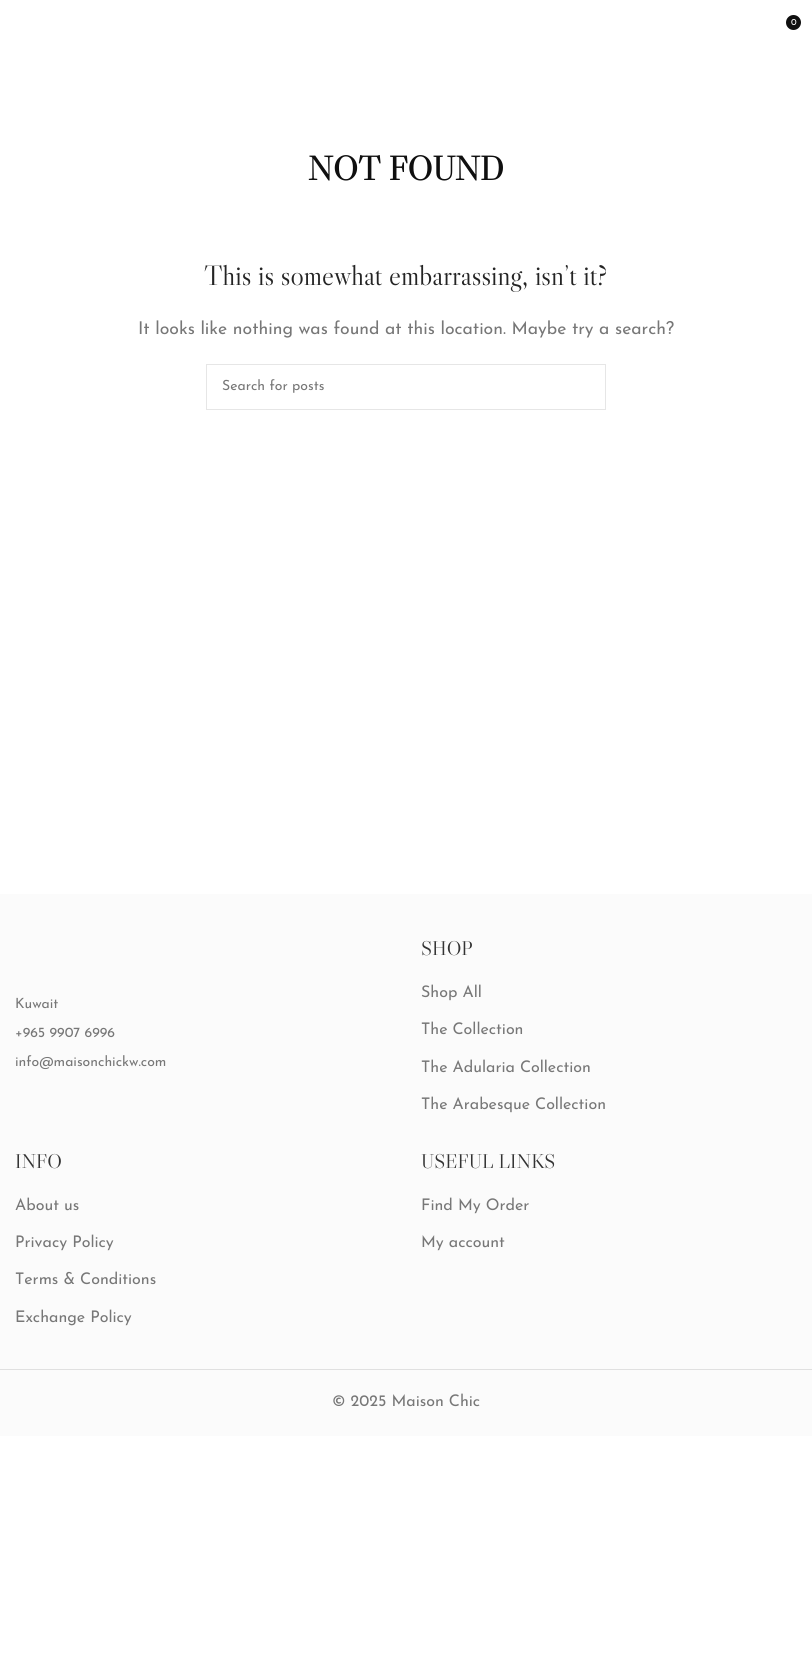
#include <cairo.h>
#include <math.h>
#include <stddef.h>

static cairo_t *ctx;

static void use_color(int r, int g, int b) {
    cairo_set_source_rgb(ctx, r / 255.0, g / 255.0, b / 255.0);
}

int main(void) {
    cairo_surface_t *surface = cairo_image_surface_create(CAIRO_FORMAT_RGB24, 812, 1668);
    ctx = cairo_create(surface);
    cairo_font_options_t *options = cairo_font_options_create();
    cairo_font_options_set_hint_metrics(options, CAIRO_HINT_METRICS_OFF);
    cairo_font_options_set_hint_style(options, CAIRO_HINT_STYLE_NONE);
    cairo_set_font_options(ctx, options);
    cairo_set_miter_limit(ctx, 4);
    use_color(255, 255, 255);
    cairo_paint(ctx);
    use_color(15, 15, 15);
    cairo_arc(ctx, 793.5, 22.5, 7.5, 0, 2 * M_PI);
    cairo_fill(ctx);
    cairo_select_font_face(ctx, "Josefin Sans", CAIRO_FONT_SLANT_NORMAL, CAIRO_FONT_WEIGHT_NORMAL);
    cairo_set_font_size(ctx, 9);
    use_color(255, 255, 255);
    cairo_move_to(ctx, 791, 25);
    cairo_show_text(ctx, "0");
    cairo_select_font_face(ctx, "Libre Caslon Display", CAIRO_FONT_SLANT_NORMAL, CAIRO_FONT_WEIGHT_BOLD);
    cairo_set_font_size(ctx, 34);
    use_color(15, 15, 15);
    cairo_move_to(ctx, 308, 180);
    cairo_show_text(ctx, "NOT FOUND");
    cairo_select_font_face(ctx, "Libre Caslon Display", CAIRO_FONT_SLANT_NORMAL, CAIRO_FONT_WEIGHT_NORMAL);
    cairo_set_font_size(ctx, 28);
    use_color(36, 36, 36);
    cairo_move_to(ctx, 204, 285);
    cairo_show_text(ctx, "This is somewhat embarrassing, isn’t it?");
    cairo_select_font_face(ctx, "Josefin Sans", CAIRO_FONT_SLANT_NORMAL, CAIRO_FONT_WEIGHT_NORMAL);
    cairo_set_font_size(ctx, 17.6);
    use_color(119, 119, 119);
    cairo_move_to(ctx, 138, 334);
    cairo_show_text(ctx, "It looks like nothing was found at this location. Maybe try a search?");
    cairo_rectangle(ctx, 206.5, 364.5, 399, 45);
    use_color(230, 230, 230);
    cairo_set_line_width(ctx, 1);
    cairo_stroke(ctx);
    cairo_set_font_size(ctx, 14);
    use_color(119, 119, 119);
    cairo_move_to(ctx, 222, 390);
    cairo_show_text(ctx, "Search for posts");
    use_color(251, 251, 251);
    cairo_rectangle(ctx, 0, 894, 812, 542);
    cairo_fill(ctx);
    use_color(119, 119, 119);
    cairo_move_to(ctx, 15, 1008);
    cairo_show_text(ctx, "Kuwait");
    cairo_move_to(ctx, 15, 1037);
    cairo_show_text(ctx, "+965 9907 6996");
    cairo_move_to(ctx, 15, 1066);
    cairo_show_text(ctx, "info@maisonchickw.com");
    cairo_select_font_face(ctx, "Libre Caslon Display", CAIRO_FONT_SLANT_NORMAL, CAIRO_FONT_WEIGHT_NORMAL);
    cairo_set_font_size(ctx, 20);
    use_color(51, 51, 51);
    cairo_move_to(ctx, 421, 955);
    cairo_show_text(ctx, "SHOP");
    cairo_select_font_face(ctx, "Josefin Sans", CAIRO_FONT_SLANT_NORMAL, CAIRO_FONT_WEIGHT_NORMAL);
    cairo_set_font_size(ctx, 16);
    use_color(119, 119, 119);
    cairo_move_to(ctx, 421, 997);
    cairo_show_text(ctx, "Shop All");
    cairo_move_to(ctx, 421, 1034);
    cairo_show_text(ctx, "The Collection");
    cairo_move_to(ctx, 421, 1072);
    cairo_show_text(ctx, "The Adularia Collection");
    cairo_move_to(ctx, 421, 1109);
    cairo_show_text(ctx, "The Arabesque Collection");
    cairo_select_font_face(ctx, "Libre Caslon Display", CAIRO_FONT_SLANT_NORMAL, CAIRO_FONT_WEIGHT_NORMAL);
    cairo_set_font_size(ctx, 20);
    use_color(51, 51, 51);
    cairo_move_to(ctx, 15, 1168);
    cairo_show_text(ctx, "INFO");
    cairo_select_font_face(ctx, "Josefin Sans", CAIRO_FONT_SLANT_NORMAL, CAIRO_FONT_WEIGHT_NORMAL);
    cairo_set_font_size(ctx, 16);
    use_color(119, 119, 119);
    cairo_move_to(ctx, 15, 1210);
    cairo_show_text(ctx, "About us");
    cairo_move_to(ctx, 15, 1247);
    cairo_show_text(ctx, "Privacy Policy");
    cairo_move_to(ctx, 15, 1284);
    cairo_show_text(ctx, "Terms & Conditions");
    cairo_move_to(ctx, 15, 1322);
    cairo_show_text(ctx, "Exchange Policy");
    cairo_select_font_face(ctx, "Libre Caslon Display", CAIRO_FONT_SLANT_NORMAL, CAIRO_FONT_WEIGHT_NORMAL);
    cairo_set_font_size(ctx, 20);
    use_color(51, 51, 51);
    cairo_move_to(ctx, 421, 1168);
    cairo_show_text(ctx, "USEFUL LINKS");
    cairo_select_font_face(ctx, "Josefin Sans", CAIRO_FONT_SLANT_NORMAL, CAIRO_FONT_WEIGHT_NORMAL);
    cairo_set_font_size(ctx, 16);
    use_color(119, 119, 119);
    cairo_move_to(ctx, 421, 1210);
    cairo_show_text(ctx, "Find My Order");
    cairo_move_to(ctx, 421, 1247);
    cairo_show_text(ctx, "My account");
    use_color(224, 224, 224);
    cairo_rectangle(ctx, 0, 1369, 812, 1);
    cairo_fill(ctx);
    use_color(119, 119, 119);
    cairo_move_to(ctx, 332, 1406);
    cairo_show_text(ctx, "© 2025 Maison Chic");
    cairo_surface_write_to_png(surface, "result.png");
    cairo_font_options_destroy(options);
    cairo_destroy(ctx);
    cairo_surface_destroy(surface);
    return 0;
}
